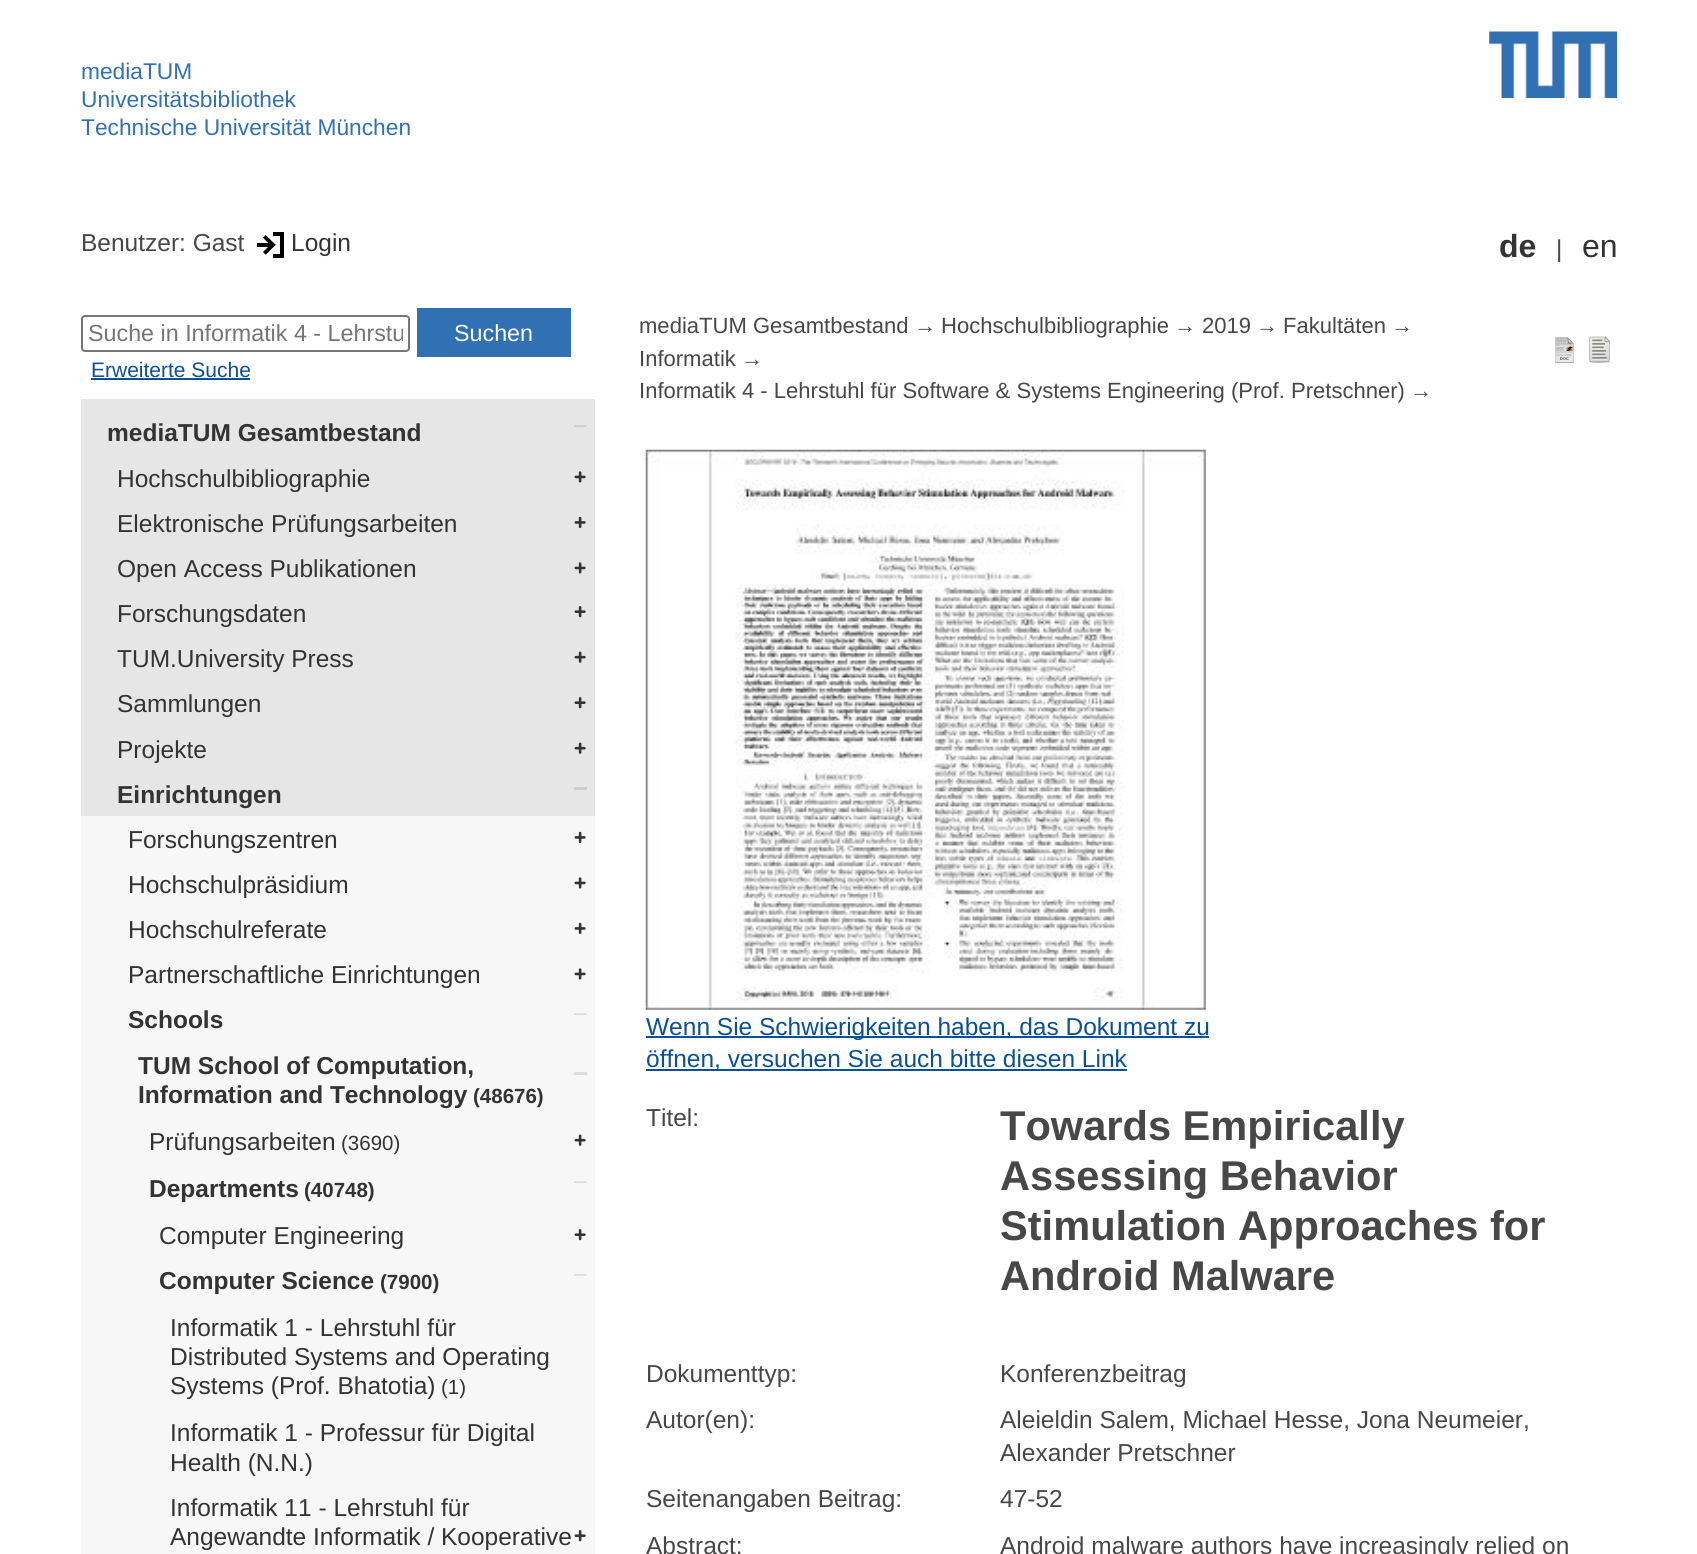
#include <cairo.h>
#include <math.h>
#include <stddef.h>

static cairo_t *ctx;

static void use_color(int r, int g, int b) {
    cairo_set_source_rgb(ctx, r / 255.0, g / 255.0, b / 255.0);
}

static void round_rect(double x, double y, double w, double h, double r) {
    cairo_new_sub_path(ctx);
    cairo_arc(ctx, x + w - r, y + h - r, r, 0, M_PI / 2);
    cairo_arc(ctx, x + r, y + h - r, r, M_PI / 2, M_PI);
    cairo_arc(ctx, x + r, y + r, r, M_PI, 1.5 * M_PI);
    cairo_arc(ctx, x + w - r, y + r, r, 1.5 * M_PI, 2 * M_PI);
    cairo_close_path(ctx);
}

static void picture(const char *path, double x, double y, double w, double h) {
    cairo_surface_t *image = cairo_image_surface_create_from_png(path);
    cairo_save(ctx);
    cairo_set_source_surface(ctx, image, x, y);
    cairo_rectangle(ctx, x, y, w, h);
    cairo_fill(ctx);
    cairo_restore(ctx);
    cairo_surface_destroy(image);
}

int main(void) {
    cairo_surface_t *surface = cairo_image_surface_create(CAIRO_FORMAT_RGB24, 1697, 1554);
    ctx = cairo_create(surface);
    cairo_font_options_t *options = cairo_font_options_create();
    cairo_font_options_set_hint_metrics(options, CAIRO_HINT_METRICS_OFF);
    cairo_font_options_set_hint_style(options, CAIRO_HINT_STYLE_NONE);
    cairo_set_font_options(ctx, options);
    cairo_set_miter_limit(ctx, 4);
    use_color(255, 255, 255);
    cairo_paint(ctx);
    cairo_select_font_face(ctx, "Liberation Sans", CAIRO_FONT_SLANT_NORMAL, CAIRO_FONT_WEIGHT_NORMAL);
    cairo_set_font_size(ctx, 22.75);
    use_color(48, 112, 179);
    cairo_move_to(ctx, 81, 79);
    cairo_show_text(ctx, "mediaTUM");
    cairo_move_to(ctx, 81, 107);
    cairo_show_text(ctx, "Universitätsbibliothek");
    cairo_move_to(ctx, 81, 135);
    cairo_show_text(ctx, "Technische Universität München");
    picture("img1.png", 1489, 31, 128, 67);
    cairo_set_font_size(ctx, 24.5);
    use_color(71, 71, 71);
    cairo_move_to(ctx, 81, 251);
    cairo_show_text(ctx, "Benutzer: Gast");
    picture("img2.png", 257, 232, 27, 26);
    use_color(51, 51, 51);
    cairo_move_to(ctx, 291, 251);
    cairo_show_text(ctx, "Login");
    cairo_select_font_face(ctx, "Liberation Sans", CAIRO_FONT_SLANT_NORMAL, CAIRO_FONT_WEIGHT_BOLD);
    cairo_set_font_size(ctx, 32);
    cairo_move_to(ctx, 1499, 257);
    cairo_show_text(ctx, "de");
    cairo_select_font_face(ctx, "Liberation Sans", CAIRO_FONT_SLANT_NORMAL, CAIRO_FONT_WEIGHT_NORMAL);
    cairo_set_font_size(ctx, 24.5);
    use_color(71, 71, 71);
    cairo_move_to(ctx, 1556, 257);
    cairo_show_text(ctx, "|");
    cairo_set_font_size(ctx, 32);
    use_color(51, 51, 51);
    cairo_move_to(ctx, 1582, 257);
    cairo_show_text(ctx, "en");
    round_rect(82, 316, 327, 35, 3);
    use_color(118, 118, 118);
    cairo_stroke(ctx);
    cairo_save(ctx);
    cairo_rectangle(ctx, 88, 320, 315, 27);
    cairo_clip(ctx);
    cairo_set_font_size(ctx, 23.3);
    use_color(117, 117, 117);
    cairo_move_to(ctx, 88, 341);
    cairo_show_text(ctx, "Suche in Informatik 4 - Lehrstu");
    cairo_restore(ctx);
    use_color(48, 112, 179);
    cairo_rectangle(ctx, 417, 308, 154, 49);
    cairo_fill(ctx);
    cairo_set_font_size(ctx, 23.3);
    use_color(255, 255, 255);
    cairo_move_to(ctx, 454, 341);
    cairo_show_text(ctx, "Suchen");
    cairo_set_font_size(ctx, 21);
    use_color(10, 80, 150);
    cairo_move_to(ctx, 91, 377);
    cairo_show_text(ctx, "Erweiterte Suche");
    cairo_rectangle(ctx, 91, 378, 159, 2);
    cairo_fill(ctx);
    use_color(230, 230, 230);
    cairo_rectangle(ctx, 81, 399, 514, 417);
    cairo_fill(ctx);
    cairo_select_font_face(ctx, "Liberation Sans", CAIRO_FONT_SLANT_NORMAL, CAIRO_FONT_WEIGHT_BOLD);
    cairo_set_font_size(ctx, 24.5);
    use_color(51, 51, 51);
    cairo_move_to(ctx, 107, 441);
    cairo_show_text(ctx, "mediaTUM Gesamtbestand");
    picture("img3.png", 574, 425, 13, 2);
    cairo_select_font_face(ctx, "Liberation Sans", CAIRO_FONT_SLANT_NORMAL, CAIRO_FONT_WEIGHT_NORMAL);
    cairo_move_to(ctx, 117, 487);
    cairo_show_text(ctx, "Hochschulbibliographie");
    picture("img4.png", 574, 471, 12, 12);
    cairo_move_to(ctx, 117, 532);
    cairo_show_text(ctx, "Elektronische Prüfungsarbeiten");
    picture("img5.png", 574, 516, 12, 12);
    cairo_move_to(ctx, 117, 577);
    cairo_show_text(ctx, "Open Access Publikationen");
    picture("img4.png", 574, 562, 12, 12);
    cairo_move_to(ctx, 117, 622);
    cairo_show_text(ctx, "Forschungsdaten");
    picture("img6.png", 574, 606, 12, 12);
    cairo_move_to(ctx, 117, 667);
    cairo_show_text(ctx, "TUM.University Press");
    picture("img7.png", 574, 651, 12, 12);
    cairo_move_to(ctx, 117, 712);
    cairo_show_text(ctx, "Sammlungen");
    picture("img6.png", 574, 697, 12, 12);
    cairo_move_to(ctx, 117, 758);
    cairo_show_text(ctx, "Projekte");
    picture("img7.png", 574, 742, 12, 12);
    cairo_select_font_face(ctx, "Liberation Sans", CAIRO_FONT_SLANT_NORMAL, CAIRO_FONT_WEIGHT_BOLD);
    cairo_move_to(ctx, 117, 803);
    cairo_show_text(ctx, "Einrichtungen");
    use_color(205, 205, 205);
    cairo_rectangle(ctx, 574, 787, 13, 3);
    cairo_fill(ctx);
    use_color(247, 247, 247);
    cairo_rectangle(ctx, 81, 816, 514, 738);
    cairo_fill(ctx);
    cairo_select_font_face(ctx, "Liberation Sans", CAIRO_FONT_SLANT_NORMAL, CAIRO_FONT_WEIGHT_NORMAL);
    use_color(51, 51, 51);
    cairo_move_to(ctx, 128, 848);
    cairo_show_text(ctx, "Forschungszentren");
    picture("img8.png", 574, 831, 12, 12);
    cairo_move_to(ctx, 128, 893);
    cairo_show_text(ctx, "Hochschulpräsidium");
    picture("img9.png", 574, 877, 12, 12);
    cairo_move_to(ctx, 128, 938);
    cairo_show_text(ctx, "Hochschulreferate");
    picture("img8.png", 574, 922, 12, 12);
    cairo_move_to(ctx, 128, 983);
    cairo_show_text(ctx, "Partnerschaftliche Einrichtungen");
    picture("img9.png", 574, 968, 12, 12);
    cairo_select_font_face(ctx, "Liberation Sans", CAIRO_FONT_SLANT_NORMAL, CAIRO_FONT_WEIGHT_BOLD);
    cairo_move_to(ctx, 128, 1028);
    cairo_show_text(ctx, "Schools");
    picture("img10.png", 574, 1013, 13, 2);
    cairo_move_to(ctx, 138, 1074);
    cairo_show_text(ctx, "TUM School of Computation,");
    use_color(220, 220, 220);
    cairo_rectangle(ctx, 574, 1072, 13, 3);
    cairo_fill(ctx);
    use_color(51, 51, 51);
    cairo_move_to(ctx, 138, 1103);
    cairo_show_text(ctx, "Information and Technology");
    cairo_set_font_size(ctx, 20.5);
    cairo_move_to(ctx, 473, 1103);
    cairo_show_text(ctx, "(48676)");
    cairo_select_font_face(ctx, "Liberation Sans", CAIRO_FONT_SLANT_NORMAL, CAIRO_FONT_WEIGHT_NORMAL);
    cairo_set_font_size(ctx, 24.5);
    cairo_move_to(ctx, 149, 1150);
    cairo_show_text(ctx, "Prüfungsarbeiten");
    cairo_set_font_size(ctx, 20.5);
    cairo_move_to(ctx, 341, 1150);
    cairo_show_text(ctx, "(3690)");
    picture("img11.png", 574, 1134, 12, 12);
    cairo_select_font_face(ctx, "Liberation Sans", CAIRO_FONT_SLANT_NORMAL, CAIRO_FONT_WEIGHT_BOLD);
    cairo_set_font_size(ctx, 24.5);
    cairo_move_to(ctx, 149, 1197);
    cairo_show_text(ctx, "Departments");
    cairo_set_font_size(ctx, 20.5);
    cairo_move_to(ctx, 304, 1197);
    cairo_show_text(ctx, "(40748)");
    picture("img10.png", 574, 1181, 13, 2);
    cairo_select_font_face(ctx, "Liberation Sans", CAIRO_FONT_SLANT_NORMAL, CAIRO_FONT_WEIGHT_NORMAL);
    cairo_set_font_size(ctx, 24.5);
    cairo_move_to(ctx, 159, 1244);
    cairo_show_text(ctx, "Computer Engineering");
    picture("img12.png", 574, 1229, 12, 12);
    cairo_select_font_face(ctx, "Liberation Sans", CAIRO_FONT_SLANT_NORMAL, CAIRO_FONT_WEIGHT_BOLD);
    cairo_move_to(ctx, 159, 1289);
    cairo_show_text(ctx, "Computer Science");
    cairo_set_font_size(ctx, 20.5);
    cairo_move_to(ctx, 380, 1289);
    cairo_show_text(ctx, "(7900)");
    picture("img13.png", 574, 1274, 13, 2);
    cairo_select_font_face(ctx, "Liberation Sans", CAIRO_FONT_SLANT_NORMAL, CAIRO_FONT_WEIGHT_NORMAL);
    cairo_set_font_size(ctx, 24.5);
    cairo_move_to(ctx, 170, 1336);
    cairo_show_text(ctx, "Informatik 1 - Lehrstuhl für");
    cairo_move_to(ctx, 170, 1365);
    cairo_show_text(ctx, "Distributed Systems and Operating");
    cairo_move_to(ctx, 170, 1394);
    cairo_show_text(ctx, "Systems (Prof. Bhatotia)");
    cairo_set_font_size(ctx, 20.5);
    cairo_move_to(ctx, 441, 1394);
    cairo_show_text(ctx, "(1)");
    cairo_set_font_size(ctx, 24.5);
    cairo_move_to(ctx, 170, 1441);
    cairo_show_text(ctx, "Informatik 1 - Professur für Digital");
    cairo_move_to(ctx, 170, 1471);
    cairo_show_text(ctx, "Health (N.N.)");
    cairo_move_to(ctx, 170, 1516);
    cairo_show_text(ctx, "Informatik 11 - Lehrstuhl für");
    cairo_move_to(ctx, 170, 1545);
    cairo_show_text(ctx, "Angewandte Informatik / Kooperative");
    picture("img12.png", 574, 1530, 12, 12);
    cairo_set_font_size(ctx, 22.05);
    use_color(71, 71, 71);
    cairo_move_to(ctx, 639, 333);
    cairo_show_text(ctx, "mediaTUM Gesamtbestand");
    cairo_move_to(ctx, 914, 333);
    cairo_show_text(ctx, "→");
    cairo_move_to(ctx, 941, 333);
    cairo_show_text(ctx, "Hochschulbibliographie");
    cairo_move_to(ctx, 1174, 333);
    cairo_show_text(ctx, "→");
    cairo_move_to(ctx, 1202, 333);
    cairo_show_text(ctx, "2019");
    cairo_move_to(ctx, 1256, 333);
    cairo_show_text(ctx, "→");
    cairo_move_to(ctx, 1283, 333);
    cairo_show_text(ctx, "Fakultäten");
    cairo_move_to(ctx, 1391, 333);
    cairo_show_text(ctx, "→");
    cairo_move_to(ctx, 639, 366);
    cairo_show_text(ctx, "Informatik");
    cairo_move_to(ctx, 741, 366);
    cairo_show_text(ctx, "→");
    cairo_move_to(ctx, 639, 398);
    cairo_show_text(ctx, "Informatik 4 - Lehrstuhl für Software & Systems Engineering (Prof. Pretschner)");
    cairo_move_to(ctx, 1410, 398);
    cairo_show_text(ctx, "→");
    picture("img14.png", 1555, 337, 19, 26);
    picture("img15.png", 1588, 336, 24, 27);
    picture("img16.png", 645, 449, 561, 561);
    use_color(10, 80, 150);
    cairo_rectangle(ctx, 646, 1036, 563, 2);
    cairo_fill(ctx);
    cairo_set_font_size(ctx, 24.5);
    cairo_move_to(ctx, 646, 1035);
    cairo_show_text(ctx, "Wenn Sie Schwierigkeiten haben, das Dokument zu");
    cairo_rectangle(ctx, 646, 1069, 481, 2);
    cairo_fill(ctx);
    cairo_move_to(ctx, 646, 1067);
    cairo_show_text(ctx, "öffnen, versuchen Sie auch bitte diesen Link");
    use_color(71, 71, 71);
    cairo_move_to(ctx, 646, 1126);
    cairo_show_text(ctx, "Titel:");
    cairo_select_font_face(ctx, "Liberation Sans", CAIRO_FONT_SLANT_NORMAL, CAIRO_FONT_WEIGHT_BOLD);
    cairo_set_font_size(ctx, 41.6);
    cairo_move_to(ctx, 1000, 1140);
    cairo_show_text(ctx, "Towards Empirically");
    cairo_move_to(ctx, 1000, 1190);
    cairo_show_text(ctx, "Assessing Behavior");
    cairo_move_to(ctx, 1000, 1240);
    cairo_show_text(ctx, "Stimulation Approaches for");
    cairo_move_to(ctx, 1000, 1290);
    cairo_show_text(ctx, "Android Malware");
    cairo_select_font_face(ctx, "Liberation Sans", CAIRO_FONT_SLANT_NORMAL, CAIRO_FONT_WEIGHT_NORMAL);
    cairo_set_font_size(ctx, 24.5);
    cairo_move_to(ctx, 646, 1382);
    cairo_show_text(ctx, "Dokumenttyp:");
    cairo_move_to(ctx, 1000, 1382);
    cairo_show_text(ctx, "Konferenzbeitrag");
    cairo_move_to(ctx, 646, 1428);
    cairo_show_text(ctx, "Autor(en):");
    cairo_move_to(ctx, 1000, 1428);
    cairo_show_text(ctx, "Aleieldin Salem, Michael Hesse, Jona Neumeier,");
    cairo_move_to(ctx, 1000, 1461);
    cairo_show_text(ctx, "Alexander Pretschner");
    cairo_move_to(ctx, 646, 1507);
    cairo_show_text(ctx, "Seitenangaben Beitrag:");
    cairo_move_to(ctx, 1000, 1507);
    cairo_show_text(ctx, "47-52");
    cairo_move_to(ctx, 646, 1554);
    cairo_show_text(ctx, "Abstract:");
    cairo_move_to(ctx, 1000, 1554);
    cairo_show_text(ctx, "Android malware authors have increasingly relied on");
    cairo_surface_write_to_png(surface, "result.png");
    cairo_font_options_destroy(options);
    cairo_destroy(ctx);
    cairo_surface_destroy(surface);
    return 0;
}
